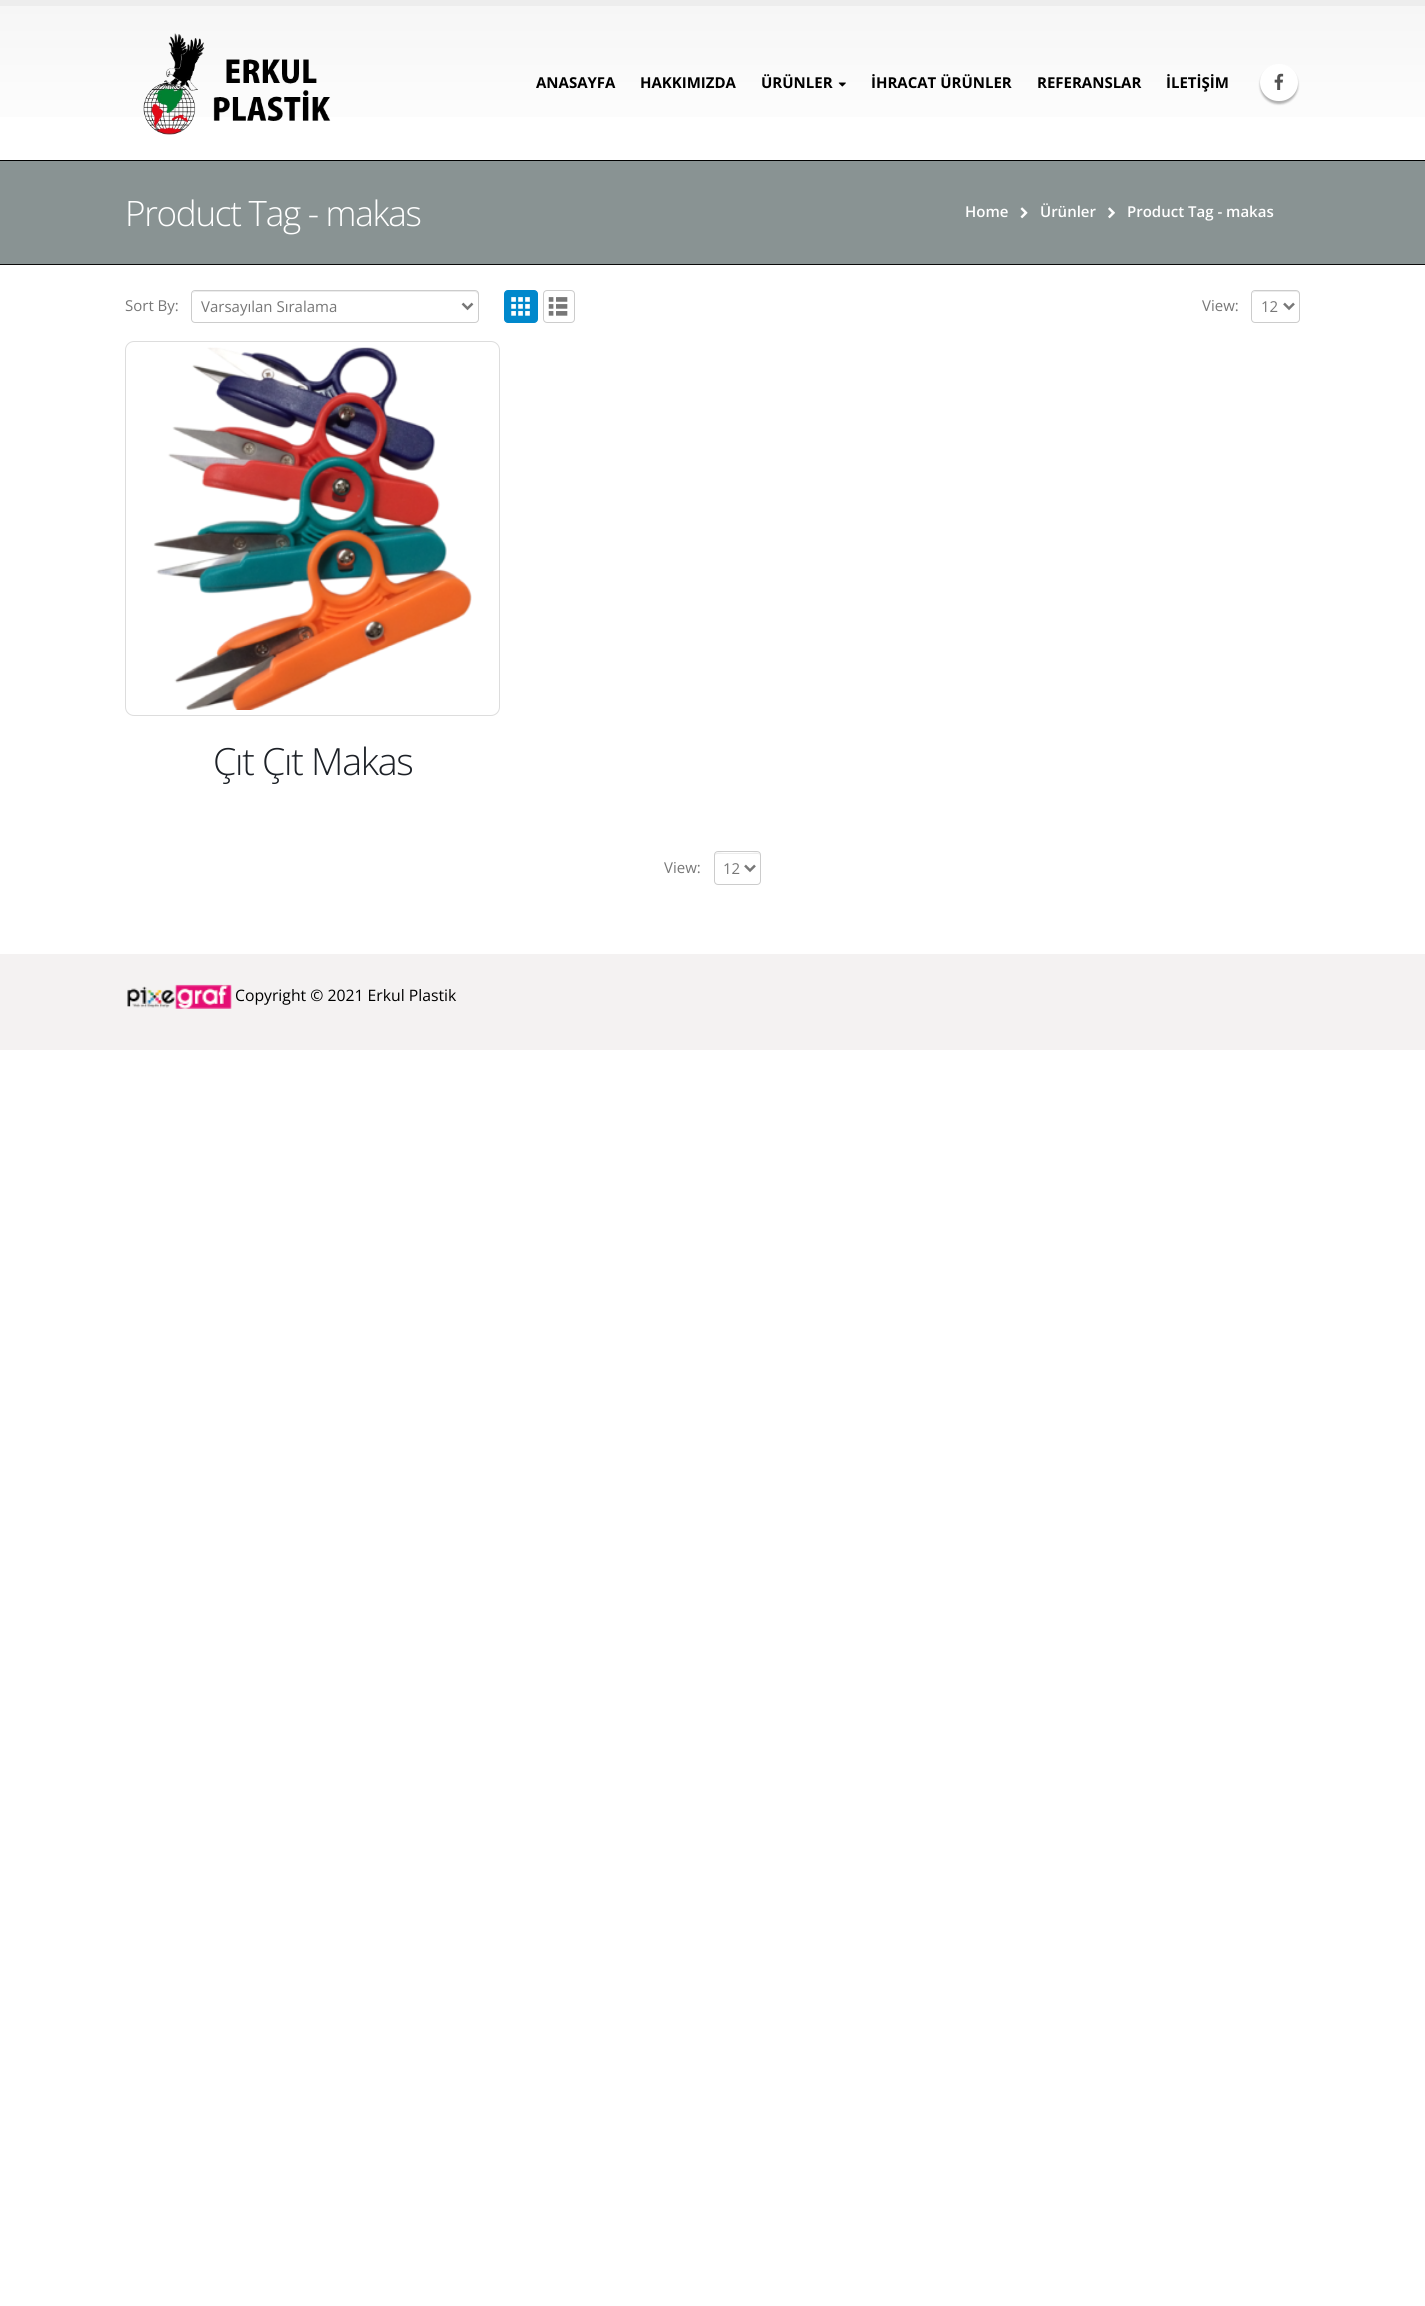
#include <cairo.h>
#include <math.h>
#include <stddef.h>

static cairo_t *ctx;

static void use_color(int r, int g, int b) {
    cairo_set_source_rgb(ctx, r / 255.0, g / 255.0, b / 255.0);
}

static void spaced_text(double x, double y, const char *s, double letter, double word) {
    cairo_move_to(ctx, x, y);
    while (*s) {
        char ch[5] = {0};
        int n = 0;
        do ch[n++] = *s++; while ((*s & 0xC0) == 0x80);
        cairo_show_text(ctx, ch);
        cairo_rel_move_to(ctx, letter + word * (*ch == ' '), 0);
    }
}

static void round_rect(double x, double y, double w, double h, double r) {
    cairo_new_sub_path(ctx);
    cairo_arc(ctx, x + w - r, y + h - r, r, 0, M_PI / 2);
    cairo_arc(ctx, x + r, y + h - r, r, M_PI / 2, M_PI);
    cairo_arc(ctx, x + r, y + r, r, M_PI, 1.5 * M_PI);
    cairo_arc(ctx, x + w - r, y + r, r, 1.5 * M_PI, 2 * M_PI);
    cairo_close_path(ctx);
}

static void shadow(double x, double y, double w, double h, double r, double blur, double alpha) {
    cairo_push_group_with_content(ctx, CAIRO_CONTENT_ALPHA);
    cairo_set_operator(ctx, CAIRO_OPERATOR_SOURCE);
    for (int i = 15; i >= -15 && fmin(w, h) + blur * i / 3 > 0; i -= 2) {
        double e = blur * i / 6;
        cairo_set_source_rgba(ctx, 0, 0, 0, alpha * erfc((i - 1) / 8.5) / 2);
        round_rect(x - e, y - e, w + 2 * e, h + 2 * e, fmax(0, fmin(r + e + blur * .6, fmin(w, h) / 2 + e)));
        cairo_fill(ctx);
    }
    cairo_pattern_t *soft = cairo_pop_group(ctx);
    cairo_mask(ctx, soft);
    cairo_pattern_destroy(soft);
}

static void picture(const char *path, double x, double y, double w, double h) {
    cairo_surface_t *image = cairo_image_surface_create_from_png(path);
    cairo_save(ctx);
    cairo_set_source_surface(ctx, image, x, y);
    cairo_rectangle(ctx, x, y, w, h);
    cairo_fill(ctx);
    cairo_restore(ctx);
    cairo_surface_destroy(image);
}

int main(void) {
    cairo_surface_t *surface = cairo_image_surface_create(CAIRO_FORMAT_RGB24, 1425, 2306);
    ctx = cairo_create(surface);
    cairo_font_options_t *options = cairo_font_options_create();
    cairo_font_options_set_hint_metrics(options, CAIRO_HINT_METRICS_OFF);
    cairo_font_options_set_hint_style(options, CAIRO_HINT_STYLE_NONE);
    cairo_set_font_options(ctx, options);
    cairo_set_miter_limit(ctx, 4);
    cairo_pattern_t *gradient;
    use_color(255, 255, 255);
    cairo_paint(ctx);
    gradient = cairo_pattern_create_linear(713, 6.2, 713, 160);
    cairo_pattern_add_color_stop_rgba(gradient, 0, 0.965, 0.965, 0.965, 1);
    cairo_pattern_add_color_stop_rgba(gradient, 1, 1, 1, 1, 1);
    cairo_set_source(ctx, gradient);
    cairo_pattern_destroy(gradient);
    cairo_rectangle(ctx, 0, 6, 1425, 111);
    cairo_fill(ctx);
    use_color(237, 237, 237);
    cairo_rectangle(ctx, 0, 0, 1425, 6);
    cairo_fill(ctx);
    picture("img1.png", 143, 33, 188, 102);
    cairo_select_font_face(ctx, "Open Sans", CAIRO_FONT_SLANT_NORMAL, CAIRO_FONT_WEIGHT_BOLD);
    cairo_set_font_size(ctx, 15);
    use_color(0, 0, 0);
    cairo_move_to(ctx, 536, 88);
    cairo_show_text(ctx, "ANASAYFA");
    cairo_move_to(ctx, 640, 88);
    cairo_show_text(ctx, "HAKKIMIZDA");
    cairo_move_to(ctx, 761, 88);
    cairo_show_text(ctx, "ÜRÜNLER");
    picture("img2.png", 838, 82, 8, 5);
    cairo_move_to(ctx, 871, 88);
    cairo_show_text(ctx, "İHRACAT ÜRÜNLER");
    cairo_move_to(ctx, 1037, 88);
    cairo_show_text(ctx, "REFERANSLAR");
    cairo_move_to(ctx, 1166, 88);
    cairo_show_text(ctx, "İLETİŞİM");
    use_color(0, 0, 0);
    shadow(1260, 66, 38, 38, 19, 1, 0.3);
    use_color(255, 255, 255);
    round_rect(1260, 64, 38, 37, 18.5);
    cairo_fill(ctx);
    picture("img3.png", 1274, 73, 10, 17);
    use_color(137, 147, 147);
    cairo_rectangle(ctx, 0, 161, 1425, 103);
    cairo_fill(ctx);
    use_color(0, 0, 0);
    cairo_rectangle(ctx, 0, 160, 1425, 1);
    cairo_fill(ctx);
    use_color(10, 10, 10);
    cairo_rectangle(ctx, 0, 264, 1425, 1);
    cairo_fill(ctx);
    cairo_select_font_face(ctx, "Open Sans Light", CAIRO_FONT_SLANT_NORMAL, CAIRO_FONT_WEIGHT_NORMAL);
    cairo_set_font_size(ctx, 35);
    use_color(255, 255, 255);
    spaced_text(125, 226, "Product Tag - makas", -1.25, 0);
    cairo_select_font_face(ctx, "Open Sans SemiBold", CAIRO_FONT_SLANT_NORMAL, CAIRO_FONT_WEIGHT_NORMAL);
    cairo_set_font_size(ctx, 15);
    cairo_move_to(ctx, 965, 217);
    cairo_show_text(ctx, "Home");
    picture("img4.png", 1020, 207, 8, 12);
    cairo_move_to(ctx, 1040, 217);
    cairo_show_text(ctx, "Ürünler");
    picture("img5.png", 1108, 207, 7, 12);
    cairo_move_to(ctx, 1127, 217);
    cairo_show_text(ctx, "Product Tag - makas");
    cairo_select_font_face(ctx, "Open Sans", CAIRO_FONT_SLANT_NORMAL, CAIRO_FONT_WEIGHT_NORMAL);
    use_color(119, 119, 119);
    cairo_move_to(ctx, 125, 311);
    cairo_show_text(ctx, "Sort By:");
    use_color(236, 236, 236);
    cairo_new_path(ctx);
    cairo_move_to(ctx, 195, 292);
    cairo_line_to(ctx, 475, 292);
    cairo_curve_to(ctx, 476, 292, 478, 294, 478, 295);
    cairo_line_to(ctx, 478, 292);
    cairo_line_to(ctx, 476, 291);
    cairo_line_to(ctx, 196, 291);
    cairo_curve_to(ctx, 194, 291, 193, 292, 193, 293);
    cairo_close_path(ctx);
    cairo_fill(ctx);
    round_rect(191.5, 290.5, 287, 32, 3.5);
    use_color(204, 204, 204);
    cairo_set_line_width(ctx, 1);
    cairo_stroke(ctx);
    cairo_new_path(ctx);
    cairo_move_to(ctx, 462.5, 303.5);
    cairo_line_to(ctx, 467.5, 308.5);
    cairo_line_to(ctx, 472.5, 303.5);
    use_color(119, 119, 119);
    cairo_set_line_width(ctx, 2.5);
    cairo_stroke(ctx);
    cairo_move_to(ctx, 201, 312);
    cairo_show_text(ctx, "Varsayılan Sıralama");
    use_color(0, 136, 204);
    round_rect(504.5, 290.5, 33, 32, 3.5);
    cairo_fill_preserve(ctx);
    cairo_set_line_width(ctx, 1);
    cairo_stroke(ctx);
    picture("img6.png", 511, 297, 19, 19);
    round_rect(543.5, 290.5, 31, 32, 3.5);
    use_color(204, 204, 204);
    cairo_stroke(ctx);
    picture("img7.png", 548, 297, 20, 19);
    use_color(119, 119, 119);
    cairo_move_to(ctx, 1202, 311);
    cairo_show_text(ctx, "View:");
    use_color(236, 236, 236);
    cairo_new_path(ctx);
    cairo_move_to(ctx, 1255, 292);
    cairo_line_to(ctx, 1296, 292);
    cairo_curve_to(ctx, 1298, 292, 1299, 294, 1299, 295);
    cairo_line_to(ctx, 1299, 294);
    cairo_curve_to(ctx, 1299, 292, 1298, 291, 1296, 291);
    cairo_line_to(ctx, 1256, 291);
    cairo_curve_to(ctx, 1254, 291, 1253, 292, 1253, 293);
    cairo_close_path(ctx);
    cairo_fill(ctx);
    round_rect(1251.5, 290.5, 48, 32, 3.5);
    use_color(204, 204, 204);
    cairo_stroke(ctx);
    cairo_new_path(ctx);
    cairo_move_to(ctx, 1284, 303.5);
    cairo_line_to(ctx, 1289, 308.5);
    cairo_line_to(ctx, 1294, 303.5);
    use_color(119, 119, 119);
    cairo_set_line_width(ctx, 2.5);
    cairo_stroke(ctx);
    cairo_move_to(ctx, 1261, 312);
    cairo_show_text(ctx, "12");
    round_rect(125.5, 341.5, 374, 374, 8.5);
    use_color(221, 221, 221);
    cairo_set_line_width(ctx, 1);
    cairo_stroke(ctx);
    picture("img8.png", 153, 347, 319, 363);
    cairo_select_font_face(ctx, "Open Sans Light", CAIRO_FONT_SLANT_NORMAL, CAIRO_FONT_WEIGHT_NORMAL);
    cairo_set_font_size(ctx, 37.5);
    use_color(29, 33, 39);
    spaced_text(213, 775, "Çıt Çıt Makas", -1.25, 0);
    cairo_select_font_face(ctx, "Open Sans", CAIRO_FONT_SLANT_NORMAL, CAIRO_FONT_WEIGHT_NORMAL);
    cairo_set_font_size(ctx, 15);
    use_color(119, 119, 119);
    cairo_move_to(ctx, 664, 873);
    cairo_show_text(ctx, "View:");
    use_color(236, 236, 236);
    cairo_new_path(ctx);
    cairo_move_to(ctx, 718, 854);
    cairo_line_to(ctx, 758, 854);
    cairo_curve_to(ctx, 759, 854, 760, 855, 760, 856);
    cairo_curve_to(ctx, 760, 851, 754, 853, 751, 853);
    cairo_line_to(ctx, 724, 853);
    cairo_curve_to(ctx, 721, 853, 715, 851, 715, 856);
    cairo_curve_to(ctx, 715, 855, 716, 854, 718, 854);
    cairo_close_path(ctx);
    cairo_fill(ctx);
    round_rect(714.5, 851.5, 46, 33, 3.5);
    use_color(204, 204, 204);
    cairo_stroke(ctx);
    cairo_new_path(ctx);
    cairo_move_to(ctx, 745, 865.5);
    cairo_line_to(ctx, 750, 870.5);
    cairo_line_to(ctx, 755, 865.5);
    use_color(119, 119, 119);
    cairo_set_line_width(ctx, 2.5);
    cairo_stroke(ctx);
    cairo_move_to(ctx, 723, 874);
    cairo_show_text(ctx, "12");
    use_color(244, 242, 242);
    cairo_rectangle(ctx, 0, 954, 1425, 96);
    cairo_fill(ctx);
    picture("img9.png", 127, 984, 105, 25);
    cairo_set_font_size(ctx, 15.75);
    use_color(0, 0, 0);
    cairo_move_to(ctx, 235, 1001);
    cairo_show_text(ctx, "Copyright © 2021 Erkul Plastik");
    cairo_surface_write_to_png(surface, "result.png");
    cairo_font_options_destroy(options);
    cairo_destroy(ctx);
    cairo_surface_destroy(surface);
    return 0;
}
